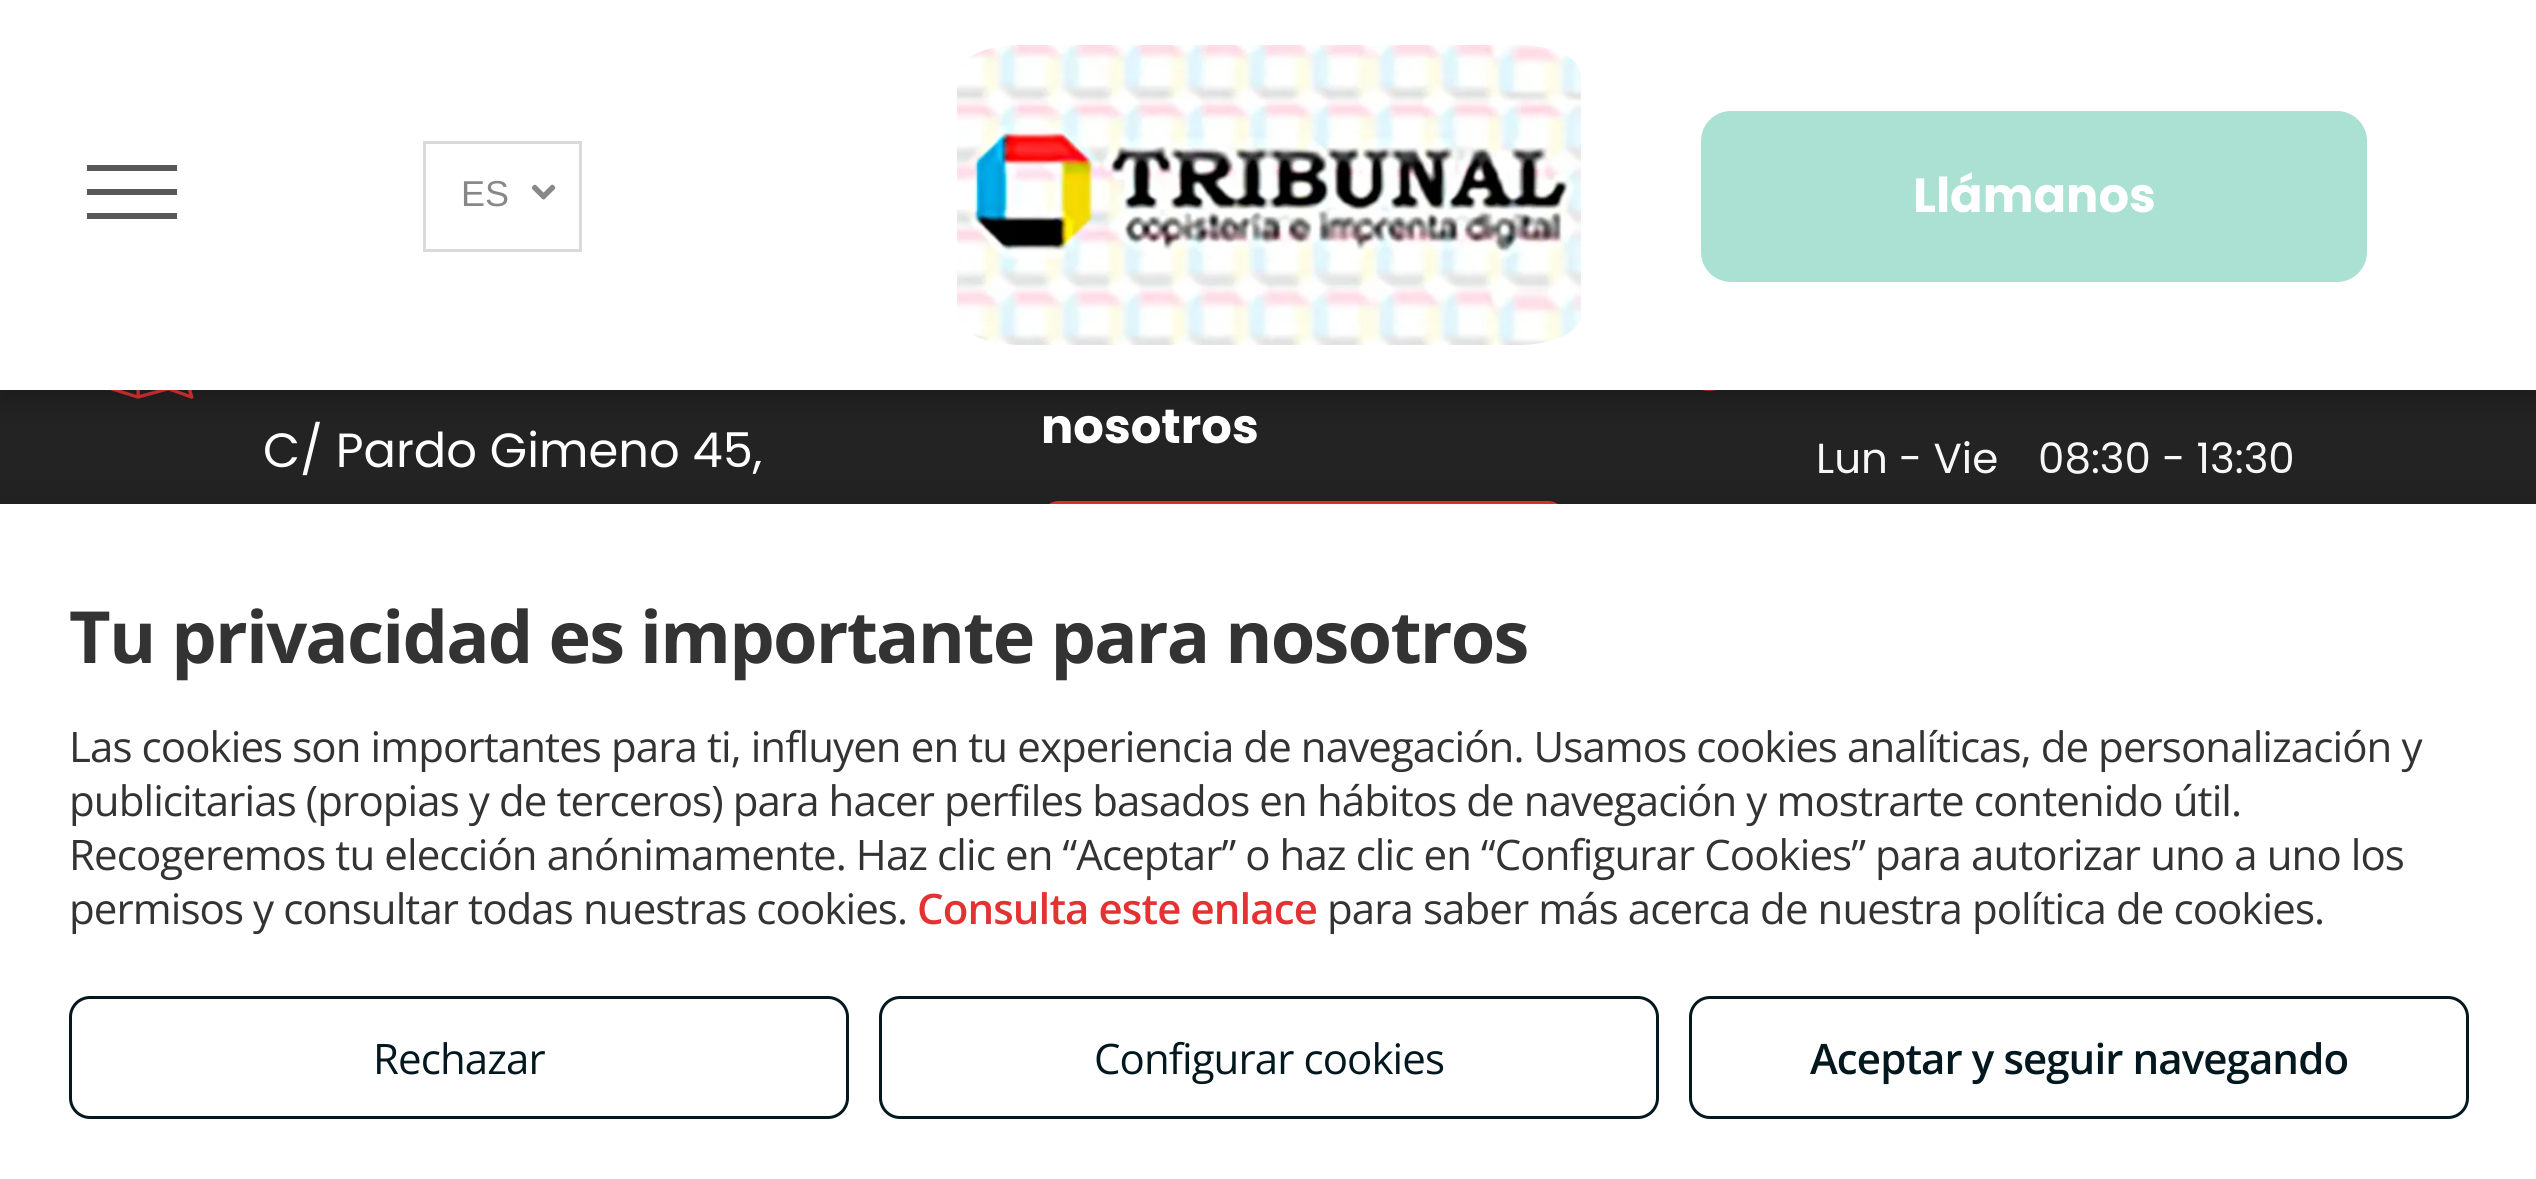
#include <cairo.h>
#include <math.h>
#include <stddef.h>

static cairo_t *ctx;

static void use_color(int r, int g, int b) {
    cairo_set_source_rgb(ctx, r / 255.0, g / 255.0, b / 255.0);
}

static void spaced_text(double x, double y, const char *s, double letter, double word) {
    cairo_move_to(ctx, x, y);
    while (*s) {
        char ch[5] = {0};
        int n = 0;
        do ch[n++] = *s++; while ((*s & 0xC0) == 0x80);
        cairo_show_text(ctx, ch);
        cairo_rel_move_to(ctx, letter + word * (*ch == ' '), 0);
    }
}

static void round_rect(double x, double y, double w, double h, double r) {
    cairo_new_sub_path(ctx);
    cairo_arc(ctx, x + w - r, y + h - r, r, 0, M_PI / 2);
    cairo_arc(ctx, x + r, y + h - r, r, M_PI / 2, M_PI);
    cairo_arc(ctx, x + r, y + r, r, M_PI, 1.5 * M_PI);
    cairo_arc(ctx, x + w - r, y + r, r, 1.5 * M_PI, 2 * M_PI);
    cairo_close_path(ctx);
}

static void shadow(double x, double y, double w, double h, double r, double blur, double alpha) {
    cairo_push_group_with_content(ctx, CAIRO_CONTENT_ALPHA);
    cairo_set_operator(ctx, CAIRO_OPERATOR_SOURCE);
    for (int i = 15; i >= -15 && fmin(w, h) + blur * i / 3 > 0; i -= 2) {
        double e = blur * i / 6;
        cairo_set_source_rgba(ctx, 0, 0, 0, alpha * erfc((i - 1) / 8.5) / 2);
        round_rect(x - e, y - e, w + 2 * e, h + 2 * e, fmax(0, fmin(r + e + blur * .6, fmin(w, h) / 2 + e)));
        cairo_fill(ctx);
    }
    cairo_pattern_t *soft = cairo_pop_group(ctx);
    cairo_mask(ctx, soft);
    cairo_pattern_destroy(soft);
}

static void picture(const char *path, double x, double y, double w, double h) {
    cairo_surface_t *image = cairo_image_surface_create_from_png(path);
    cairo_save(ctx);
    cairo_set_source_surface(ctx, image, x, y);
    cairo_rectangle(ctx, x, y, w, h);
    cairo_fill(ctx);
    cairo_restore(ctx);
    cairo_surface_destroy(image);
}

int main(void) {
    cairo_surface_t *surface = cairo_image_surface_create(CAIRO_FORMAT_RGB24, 2536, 1179);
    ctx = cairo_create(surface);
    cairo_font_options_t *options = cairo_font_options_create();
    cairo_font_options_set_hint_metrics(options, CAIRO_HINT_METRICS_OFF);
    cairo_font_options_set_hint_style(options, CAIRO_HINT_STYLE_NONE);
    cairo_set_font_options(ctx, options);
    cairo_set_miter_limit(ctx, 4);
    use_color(35, 35, 35);
    cairo_paint(ctx);
    picture("img3.png", 110, 390, 84, 9);
    picture("img4.png", 1701, 390, 16, 1);
    use_color(0, 0, 0);
    shadow(0, 9, 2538, 390, 0, 16.5, 0.25);
    use_color(255, 255, 255);
    cairo_rectangle(ctx, 0, 0, 2536, 390);
    cairo_fill(ctx);
    use_color(88, 88, 88);
    cairo_rectangle(ctx, 87, 165, 90, 6);
    cairo_fill(ctx);
    cairo_rectangle(ctx, 87, 189, 90, 6);
    cairo_fill(ctx);
    cairo_rectangle(ctx, 87, 213, 90, 6);
    cairo_fill(ctx);
    cairo_rectangle(ctx, 424.5, 142.5, 156, 108);
    use_color(218, 218, 218);
    cairo_set_line_width(ctx, 3);
    cairo_stroke(ctx);
    cairo_select_font_face(ctx, "Liberation Sans", CAIRO_FONT_SLANT_NORMAL, CAIRO_FONT_WEIGHT_NORMAL);
    cairo_set_font_size(ctx, 36);
    use_color(136, 136, 136);
    cairo_move_to(ctx, 461, 206);
    cairo_show_text(ctx, "ES");
    picture("img1.png", 531, 184, 25, 16);
    picture("img2.png", 957, 45, 624, 300);
    use_color(170, 225, 210);
    round_rect(1701, 111, 666, 171, 30);
    cairo_fill(ctx);
    cairo_select_font_face(ctx, "Poppins", CAIRO_FONT_SLANT_NORMAL, CAIRO_FONT_WEIGHT_BOLD);
    cairo_set_font_size(ctx, 48);
    use_color(255, 255, 255);
    cairo_move_to(ctx, 1913, 212);
    cairo_show_text(ctx, "Llámanos");
    cairo_select_font_face(ctx, "Poppins", CAIRO_FONT_SLANT_NORMAL, CAIRO_FONT_WEIGHT_NORMAL);
    cairo_move_to(ctx, 263, 467);
    cairo_show_text(ctx, "C/ Pardo Gimeno 45,");
    cairo_select_font_face(ctx, "Poppins", CAIRO_FONT_SLANT_NORMAL, CAIRO_FONT_WEIGHT_BOLD);
    cairo_move_to(ctx, 1041, 443);
    cairo_show_text(ctx, "nosotros");
    use_color(228, 50, 50);
    round_rect(1041, 501, 525, 156, 18);
    cairo_fill(ctx);
    cairo_select_font_face(ctx, "Poppins", CAIRO_FONT_SLANT_NORMAL, CAIRO_FONT_WEIGHT_NORMAL);
    cairo_set_font_size(ctx, 42);
    use_color(247, 247, 247);
    cairo_move_to(ctx, 1816, 473);
    cairo_show_text(ctx, "Lun - Vie");
    cairo_move_to(ctx, 2038, 473);
    cairo_show_text(ctx, "08:30 - 13:30");
    use_color(0, 0, 0);
    shadow(0, 498, 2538, 675, 0, 15, 0.1);
    use_color(255, 255, 255);
    cairo_rectangle(ctx, 0, 504, 2536, 675);
    cairo_fill(ctx);
    cairo_select_font_face(ctx, "Open Sans", CAIRO_FONT_SLANT_NORMAL, CAIRO_FONT_WEIGHT_BOLD);
    cairo_set_font_size(ctx, 72);
    use_color(51, 51, 51);
    spaced_text(69, 663, "Tu privacidad es importante para nosotros", -1.8, 0);
    cairo_select_font_face(ctx, "Open Sans", CAIRO_FONT_SLANT_NORMAL, CAIRO_FONT_WEIGHT_NORMAL);
    cairo_set_font_size(ctx, 42);
    spaced_text(69, 762, "Las cookies son importantes para ti, influyen en tu experiencia de navegación. Usamos cookies analíticas, de personalización y", -0.9, 0);
    spaced_text(69, 816, "publicitarias (propias y de terceros) para hacer perfiles basados en hábitos de navegación y mostrarte contenido útil.", -0.9, 0);
    spaced_text(69, 870, "Recogeremos tu elección anónimamente. Haz clic en “Aceptar” o haz clic en “Configurar Cookies” para autorizar uno a uno los", -0.9, 0);
    spaced_text(69, 924, "permisos y consultar todas nuestras cookies.", -0.9, 0);
    cairo_select_font_face(ctx, "Open Sans SemiBold", CAIRO_FONT_SLANT_NORMAL, CAIRO_FONT_WEIGHT_NORMAL);
    use_color(228, 50, 50);
    spaced_text(917, 924, "Consulta este enlace", -0.9, 0);
    cairo_select_font_face(ctx, "Open Sans", CAIRO_FONT_SLANT_NORMAL, CAIRO_FONT_WEIGHT_NORMAL);
    use_color(51, 51, 51);
    spaced_text(1327, 924, "para saber más acerca de nuestra política de cookies.", -0.9, 0);
    round_rect(70.5, 997.5, 777, 120, 19.5);
    use_color(3, 24, 30);
    cairo_stroke(ctx);
    spaced_text(373, 1074, "Rechazar", -0.9, 0);
    round_rect(880.5, 997.5, 777, 120, 19.5);
    cairo_stroke(ctx);
    spaced_text(1094, 1074, "Configurar cookies", -0.9, 0);
    round_rect(1690.5, 997.5, 777, 120, 19.5);
    cairo_stroke(ctx);
    cairo_select_font_face(ctx, "Open Sans SemiBold", CAIRO_FONT_SLANT_NORMAL, CAIRO_FONT_WEIGHT_NORMAL);
    spaced_text(1810, 1074, "Aceptar y seguir navegando", -0.9, 0);
    cairo_surface_write_to_png(surface, "result.png");
    cairo_font_options_destroy(options);
    cairo_destroy(ctx);
    cairo_surface_destroy(surface);
    return 0;
}
